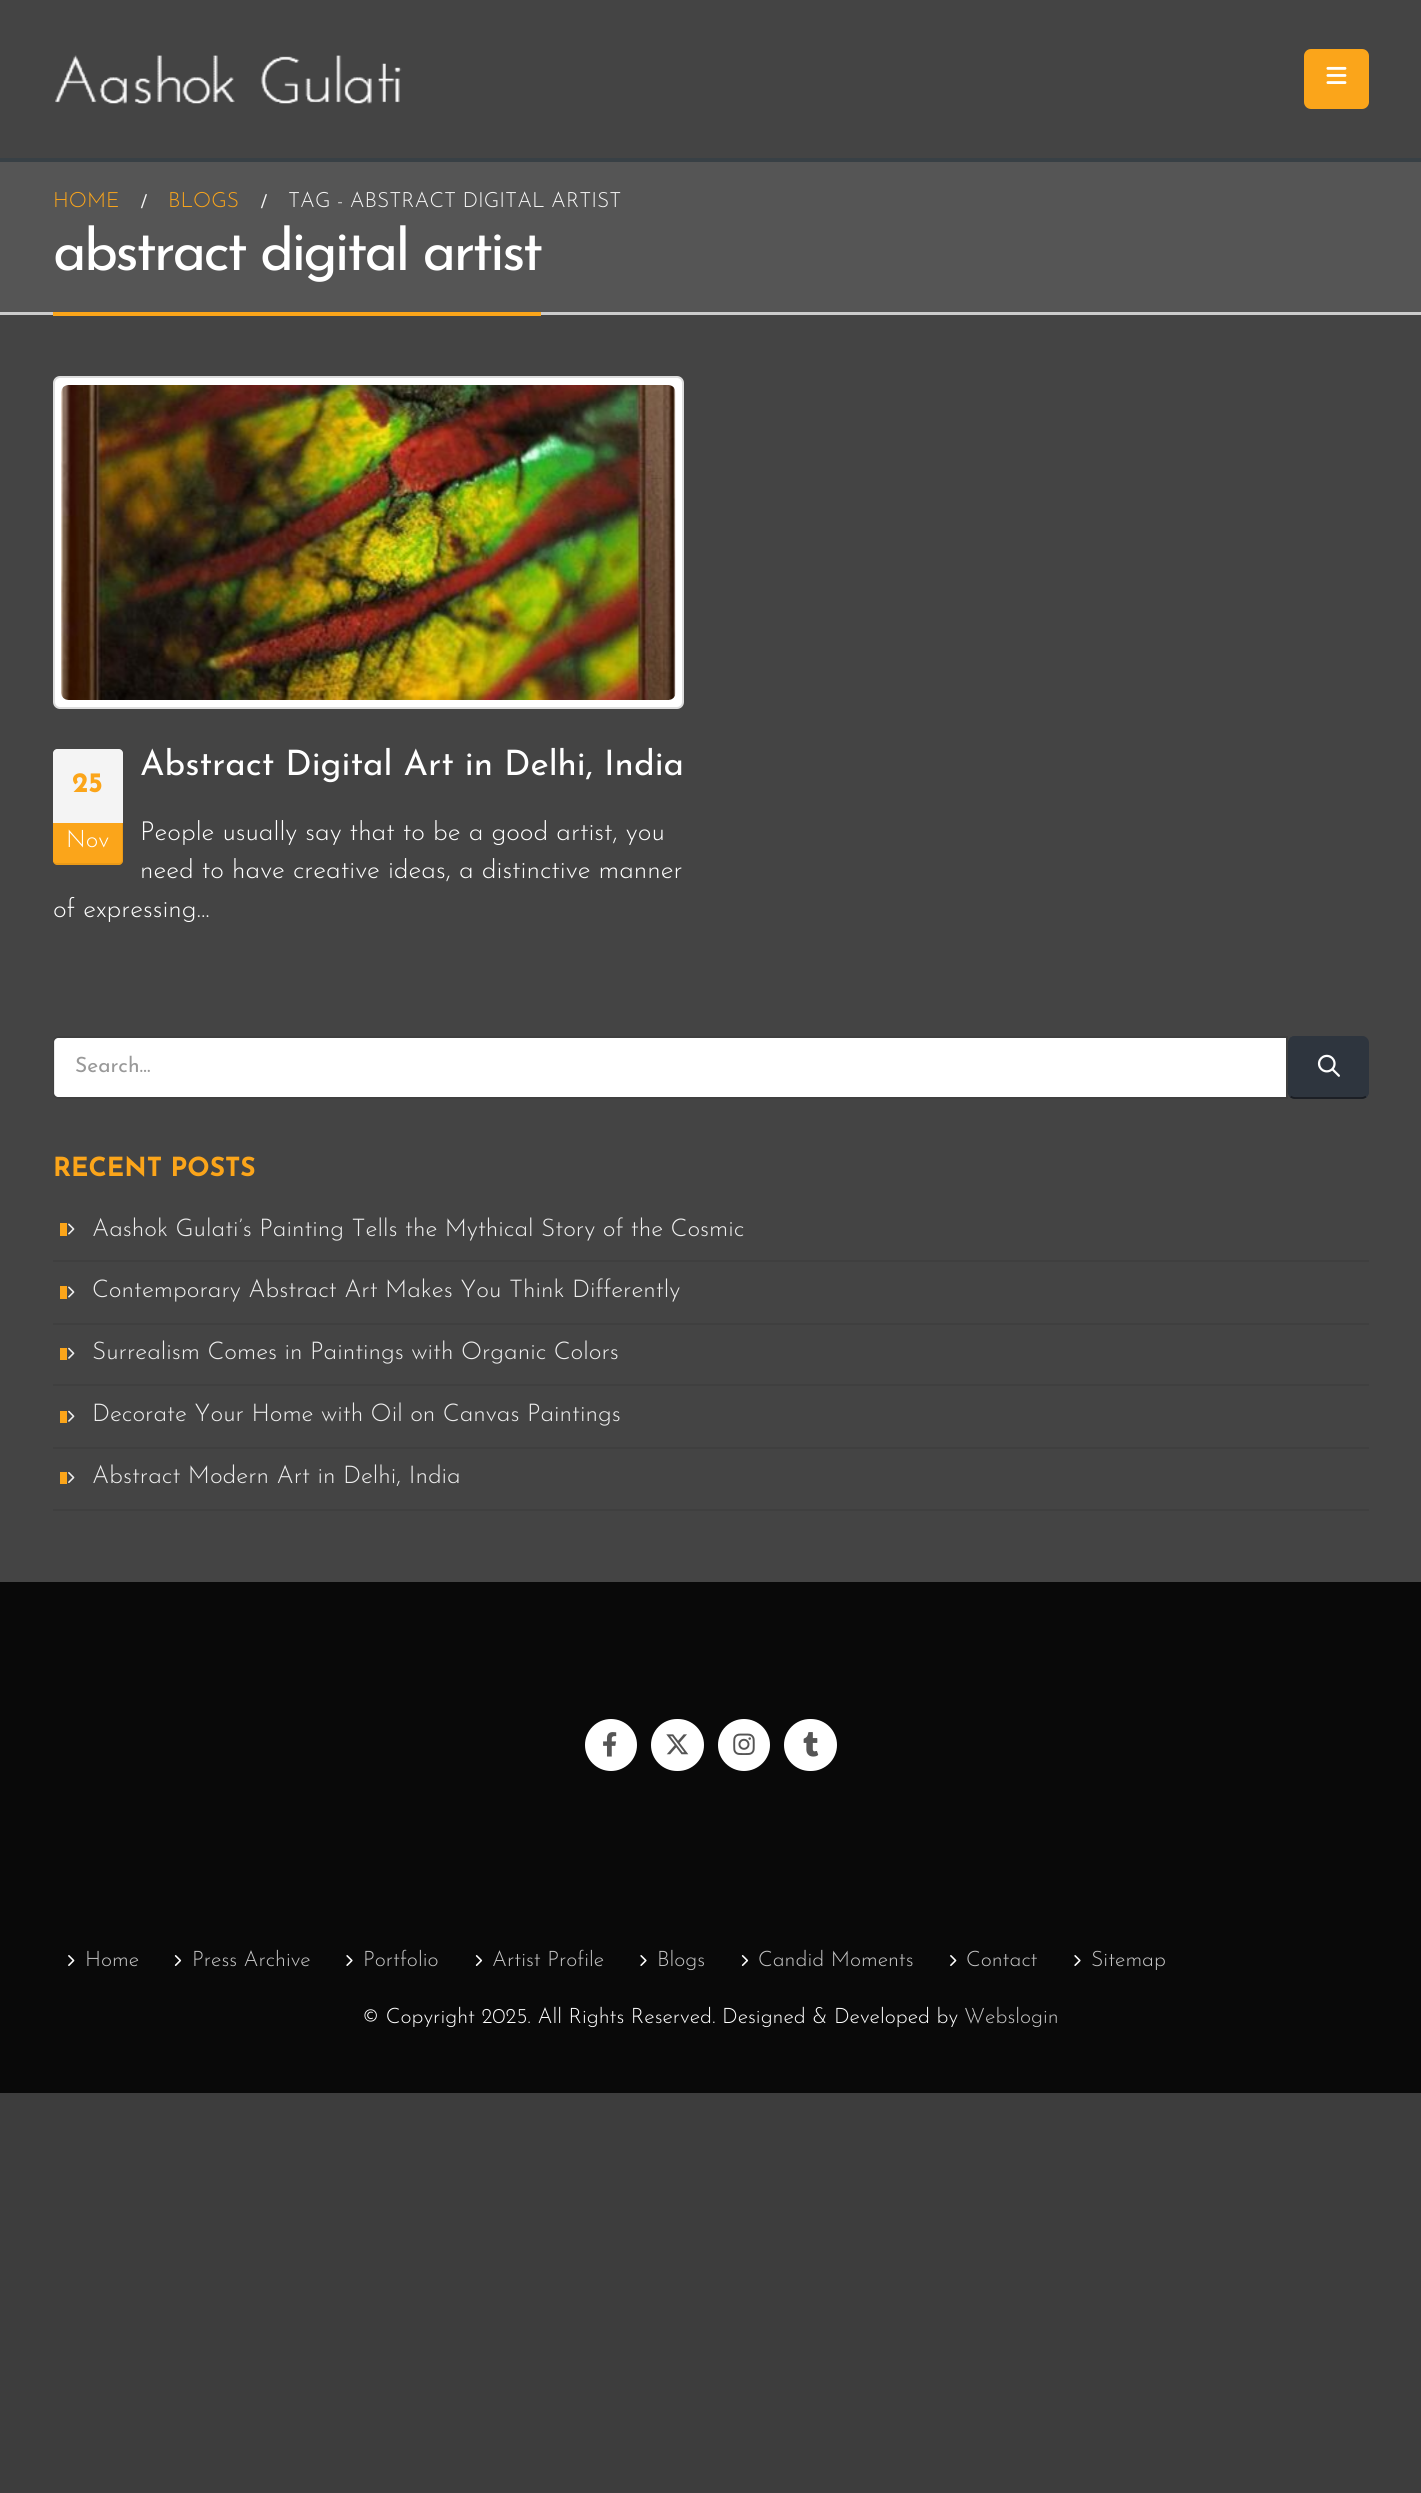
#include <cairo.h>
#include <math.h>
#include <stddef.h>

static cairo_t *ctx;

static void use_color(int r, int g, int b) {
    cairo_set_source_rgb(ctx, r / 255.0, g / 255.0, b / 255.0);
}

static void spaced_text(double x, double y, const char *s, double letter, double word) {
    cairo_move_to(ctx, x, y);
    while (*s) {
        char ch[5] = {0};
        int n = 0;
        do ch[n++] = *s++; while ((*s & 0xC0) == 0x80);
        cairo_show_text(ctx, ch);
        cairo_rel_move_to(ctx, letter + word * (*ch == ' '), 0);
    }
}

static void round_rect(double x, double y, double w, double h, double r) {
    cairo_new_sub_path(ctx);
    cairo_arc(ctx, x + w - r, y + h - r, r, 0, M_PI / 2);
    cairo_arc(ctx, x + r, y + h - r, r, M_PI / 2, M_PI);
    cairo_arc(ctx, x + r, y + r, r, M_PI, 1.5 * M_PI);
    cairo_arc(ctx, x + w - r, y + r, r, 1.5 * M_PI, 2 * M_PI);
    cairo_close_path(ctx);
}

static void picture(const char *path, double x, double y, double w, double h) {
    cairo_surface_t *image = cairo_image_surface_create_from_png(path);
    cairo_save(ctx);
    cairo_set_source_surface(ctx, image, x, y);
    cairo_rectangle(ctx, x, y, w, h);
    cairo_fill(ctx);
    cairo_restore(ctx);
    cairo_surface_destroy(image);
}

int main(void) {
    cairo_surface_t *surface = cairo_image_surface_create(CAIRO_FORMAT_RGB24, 1421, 2493);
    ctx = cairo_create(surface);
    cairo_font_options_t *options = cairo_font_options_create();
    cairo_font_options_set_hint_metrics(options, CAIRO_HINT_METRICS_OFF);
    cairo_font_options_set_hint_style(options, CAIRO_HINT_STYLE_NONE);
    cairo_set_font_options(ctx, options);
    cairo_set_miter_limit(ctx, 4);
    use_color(61, 61, 61);
    cairo_paint(ctx);
    use_color(68, 68, 68);
    cairo_rectangle(ctx, 0, 0, 1421, 158);
    cairo_fill(ctx);
    picture("img1.png", 55, 55, 347, 49);
    use_color(251, 165, 26);
    round_rect(1304, 49, 65, 60, 7);
    cairo_fill(ctx);
    picture("img2.png", 1326, 66, 21, 18);
    use_color(85, 85, 85);
    cairo_rectangle(ctx, 0, 162, 1421, 150);
    cairo_fill(ctx);
    use_color(56, 64, 69);
    cairo_rectangle(ctx, 0, 158, 1421, 4);
    cairo_fill(ctx);
    use_color(204, 204, 204);
    cairo_rectangle(ctx, 0, 312, 1421, 3);
    cairo_fill(ctx);
    cairo_select_font_face(ctx, "Josefin Sans Light", CAIRO_FONT_SLANT_NORMAL, CAIRO_FONT_WEIGHT_NORMAL);
    cairo_set_font_size(ctx, 21);
    use_color(251, 165, 26);
    cairo_move_to(ctx, 53, 207);
    cairo_show_text(ctx, "HOME");
    cairo_select_font_face(ctx, "Liberation Serif", CAIRO_FONT_SLANT_NORMAL, CAIRO_FONT_WEIGHT_BOLD);
    use_color(247, 247, 247);
    cairo_move_to(ctx, 141, 208);
    cairo_show_text(ctx, "/");
    cairo_select_font_face(ctx, "Josefin Sans Light", CAIRO_FONT_SLANT_NORMAL, CAIRO_FONT_WEIGHT_NORMAL);
    use_color(251, 165, 26);
    cairo_move_to(ctx, 168, 207);
    cairo_show_text(ctx, "BLOGS");
    cairo_select_font_face(ctx, "Liberation Serif", CAIRO_FONT_SLANT_NORMAL, CAIRO_FONT_WEIGHT_BOLD);
    use_color(247, 247, 247);
    cairo_move_to(ctx, 261, 208);
    cairo_show_text(ctx, "/");
    cairo_select_font_face(ctx, "Josefin Sans Light", CAIRO_FONT_SLANT_NORMAL, CAIRO_FONT_WEIGHT_NORMAL);
    cairo_move_to(ctx, 288, 207);
    cairo_show_text(ctx, "TAG - ABSTRACT DIGITAL ARTIST");
    cairo_select_font_face(ctx, "Josefin Sans", CAIRO_FONT_SLANT_NORMAL, CAIRO_FONT_WEIGHT_NORMAL);
    cairo_set_font_size(ctx, 57.75);
    use_color(255, 255, 255);
    spaced_text(53, 270, "abstract digital artist", -2.9, 0);
    use_color(68, 68, 68);
    cairo_rectangle(ctx, 0, 315, 1421, 1267);
    cairo_fill(ctx);
    use_color(251, 165, 26);
    cairo_rectangle(ctx, 53, 312, 488, 4);
    cairo_fill(ctx);
    use_color(255, 255, 255);
    round_rect(54, 377, 629, 331, 6);
    cairo_fill_preserve(ctx);
    use_color(221, 221, 221);
    cairo_stroke(ctx);
    picture("img3.png", 61, 385, 615, 315);
    cairo_set_font_size(ctx, 35);
    use_color(255, 255, 255);
    cairo_move_to(ctx, 140, 775);
    cairo_show_text(ctx, "Abstract Digital Art in Delhi, India");
    use_color(244, 244, 244);
    cairo_new_path(ctx);
    cairo_move_to(ctx, 57, 749);
    cairo_line_to(ctx, 119, 749);
    cairo_curve_to(ctx, 121, 749, 123, 751, 123, 753);
    cairo_line_to(ctx, 123, 823);
    cairo_line_to(ctx, 53, 823);
    cairo_line_to(ctx, 53, 753);
    cairo_curve_to(ctx, 53, 751, 55, 749, 57, 749);
    cairo_close_path(ctx);
    cairo_fill(ctx);
    cairo_select_font_face(ctx, "Josefin Sans", CAIRO_FONT_SLANT_NORMAL, CAIRO_FONT_WEIGHT_BOLD);
    cairo_set_font_size(ctx, 28);
    use_color(251, 165, 26);
    cairo_move_to(ctx, 72, 792);
    cairo_show_text(ctx, "25");
    cairo_new_path(ctx);
    cairo_move_to(ctx, 53, 823);
    cairo_line_to(ctx, 123, 823);
    cairo_line_to(ctx, 123, 861);
    cairo_curve_to(ctx, 123, 863, 121, 865, 119, 865);
    cairo_line_to(ctx, 57, 865);
    cairo_curve_to(ctx, 55, 865, 53, 863, 53, 861);
    cairo_close_path(ctx);
    cairo_fill(ctx);
    cairo_set_source_rgba(ctx, 0, 0, 0, 0.07);
    cairo_new_path(ctx);
    cairo_move_to(ctx, 53, 862);
    cairo_curve_to(ctx, 53, 863, 54, 864, 56, 865);
    cairo_line_to(ctx, 119, 865);
    cairo_line_to(ctx, 122, 864);
    cairo_line_to(ctx, 123, 862);
    cairo_line_to(ctx, 123, 823);
    cairo_line_to(ctx, 122, 823);
    cairo_line_to(ctx, 122, 859);
    cairo_curve_to(ctx, 122, 861, 121, 863, 119, 863);
    cairo_line_to(ctx, 56, 863);
    cairo_curve_to(ctx, 55, 863, 54, 862, 53, 862);
    cairo_close_path(ctx);
    cairo_fill(ctx);
    cairo_select_font_face(ctx, "Josefin Sans Light", CAIRO_FONT_SLANT_NORMAL, CAIRO_FONT_WEIGHT_NORMAL);
    cairo_set_font_size(ctx, 24);
    use_color(255, 255, 255);
    cairo_move_to(ctx, 66, 847);
    cairo_show_text(ctx, "Nov");
    cairo_set_font_size(ctx, 26.25);
    cairo_move_to(ctx, 140, 840);
    cairo_show_text(ctx, "People usually say that to be a good artist, you");
    cairo_move_to(ctx, 140, 878);
    cairo_show_text(ctx, "need to have creative ideas, a distinctive manner");
    cairo_move_to(ctx, 53, 917);
    cairo_show_text(ctx, "of expressing...");
    cairo_new_path(ctx);
    cairo_move_to(ctx, 58, 1038);
    cairo_line_to(ctx, 1286, 1038);
    cairo_line_to(ctx, 1286, 1097);
    cairo_line_to(ctx, 58, 1097);
    cairo_curve_to(ctx, 56, 1097, 54, 1095, 54, 1093);
    cairo_line_to(ctx, 54, 1042);
    cairo_curve_to(ctx, 54, 1040, 56, 1038, 58, 1038);
    cairo_close_path(ctx);
    cairo_fill(ctx);
    use_color(46, 53, 62);
    round_rect(1288, 1036, 81, 63, 7);
    cairo_fill(ctx);
    cairo_new_path(ctx);
    cairo_move_to(ctx, 1366, 1096.5);
    cairo_curve_to(ctx, 1364.5, 1097.5, 1363, 1098, 1361.5, 1098);
    cairo_line_to(ctx, 1295, 1098);
    cairo_curve_to(ctx, 1293.5, 1098, 1292, 1097.5, 1290.5, 1096.5);
    use_color(25, 28, 33);
    cairo_set_line_width(ctx, 1.8);
    cairo_stroke(ctx);
    cairo_new_path(ctx);
    cairo_move_to(ctx, 1290.5, 1096.5);
    cairo_curve_to(ctx, 1287.5, 1093.5, 1289, 1087, 1289, 1084);
    cairo_line_to(ctx, 1289, 1051);
    cairo_curve_to(ctx, 1289, 1035, 1289.5, 1037, 1306, 1037);
    cairo_line_to(ctx, 1350.5, 1037);
    cairo_curve_to(ctx, 1367, 1037, 1367.5, 1035, 1367.5, 1051);
    cairo_line_to(ctx, 1367.5, 1084);
    cairo_curve_to(ctx, 1367.5, 1087, 1369, 1093.5, 1366, 1096.5);
    use_color(46, 53, 62);
    cairo_stroke(ctx);
    cairo_new_path(ctx);
    cairo_move_to(ctx, 58, 1037);
    cairo_line_to(ctx, 1287, 1037);
    cairo_line_to(ctx, 1287, 1098);
    cairo_line_to(ctx, 58, 1098);
    cairo_curve_to(ctx, 56, 1098, 54, 1096, 54, 1094);
    cairo_line_to(ctx, 54, 1041);
    cairo_curve_to(ctx, 54, 1039, 56, 1037, 58, 1037);
    cairo_close_path(ctx);
    cairo_set_source_rgba(ctx, 0, 0, 0, 0.08);
    cairo_set_line_width(ctx, 2);
    cairo_stroke(ctx);
    cairo_select_font_face(ctx, "Josefin Sans", CAIRO_FONT_SLANT_NORMAL, CAIRO_FONT_WEIGHT_NORMAL);
    cairo_set_font_size(ctx, 21);
    use_color(153, 153, 153);
    cairo_move_to(ctx, 75, 1072);
    cairo_show_text(ctx, "Search…");
    picture("img4.png", 1317, 1054, 23, 23);
    cairo_select_font_face(ctx, "Josefin Sans", CAIRO_FONT_SLANT_NORMAL, CAIRO_FONT_WEIGHT_BOLD);
    cairo_set_font_size(ctx, 26.25);
    use_color(251, 165, 26);
    cairo_move_to(ctx, 53, 1176);
    cairo_show_text(ctx, "RECENT POSTS");
    use_color(63, 63, 63);
    cairo_rectangle(ctx, 53, 1509, 1316, 2);
    cairo_fill(ctx);
    use_color(251, 165, 26);
    cairo_rectangle(ctx, 60, 1223, 7, 13);
    cairo_fill(ctx);
    picture("img5.png", 68, 1223, 7, 12);
    cairo_select_font_face(ctx, "Josefin Sans Light", CAIRO_FONT_SLANT_NORMAL, CAIRO_FONT_WEIGHT_NORMAL);
    cairo_set_font_size(ctx, 24.4);
    use_color(238, 238, 238);
    cairo_move_to(ctx, 92, 1236);
    cairo_show_text(ctx, "Aashok Gulati’s Painting Tells the Mythical Story of the Cosmic");
    use_color(63, 63, 63);
    cairo_rectangle(ctx, 53, 1260, 1316, 2);
    cairo_fill(ctx);
    use_color(251, 165, 26);
    cairo_rectangle(ctx, 60, 1286, 7, 13);
    cairo_fill(ctx);
    picture("img5.png", 68, 1286, 7, 12);
    use_color(238, 238, 238);
    cairo_move_to(ctx, 92, 1297);
    cairo_show_text(ctx, "Contemporary Abstract Art Makes You Think Differently");
    use_color(63, 63, 63);
    cairo_rectangle(ctx, 53, 1323, 1316, 2);
    cairo_fill(ctx);
    use_color(251, 165, 26);
    cairo_rectangle(ctx, 60, 1348, 7, 12);
    cairo_fill(ctx);
    picture("img6.png", 68, 1347, 7, 12);
    use_color(238, 238, 238);
    cairo_move_to(ctx, 92, 1359);
    cairo_show_text(ctx, "Surrealism Comes in Paintings with Organic Colors");
    use_color(63, 63, 63);
    cairo_rectangle(ctx, 53, 1384, 1316, 2);
    cairo_fill(ctx);
    use_color(251, 165, 26);
    cairo_rectangle(ctx, 60, 1411, 7, 12);
    cairo_fill(ctx);
    picture("img6.png", 68, 1410, 7, 12);
    use_color(238, 238, 238);
    cairo_move_to(ctx, 92, 1421);
    cairo_show_text(ctx, "Decorate Your Home with Oil on Canvas Paintings");
    use_color(63, 63, 63);
    cairo_rectangle(ctx, 53, 1447, 1316, 2);
    cairo_fill(ctx);
    use_color(251, 165, 26);
    cairo_rectangle(ctx, 60, 1472, 7, 12);
    cairo_fill(ctx);
    picture("img7.png", 68, 1472, 7, 11);
    use_color(238, 238, 238);
    cairo_move_to(ctx, 92, 1483);
    cairo_show_text(ctx, "Abstract Modern Art in Delhi, India");
    use_color(9, 9, 9);
    cairo_rectangle(ctx, 0, 1582, 1421, 511);
    cairo_fill(ctx);
    use_color(255, 255, 255);
    cairo_arc(ctx, 611, 1745, 26, 0, 2 * M_PI);
    cairo_fill(ctx);
    picture("img8.png", 603, 1732, 14, 25);
    round_rect(651, 1719, 53, 52, 26);
    cairo_fill(ctx);
    picture("img9.png", 666, 1734, 23, 21);
    cairo_arc(ctx, 744, 1745, 26, 0, 2 * M_PI);
    cairo_fill(ctx);
    picture("img10.png", 733, 1733, 22, 22);
    round_rect(784, 1719, 53, 52, 26);
    cairo_fill(ctx);
    picture("img11.png", 803, 1732, 16, 25);
    picture("img12.png", 68, 1955, 7, 11);
    cairo_set_font_size(ctx, 21.25);
    use_color(197, 197, 197);
    cairo_move_to(ctx, 85, 1966);
    cairo_show_text(ctx, "Home");
    picture("img13.png", 174, 1955, 8, 11);
    cairo_move_to(ctx, 192, 1966);
    cairo_show_text(ctx, "Press Archive");
    picture("img14.png", 346, 1955, 7, 11);
    cairo_move_to(ctx, 363, 1966);
    cairo_show_text(ctx, "Portfolio");
    picture("img13.png", 475, 1955, 8, 11);
    cairo_move_to(ctx, 492, 1966);
    cairo_show_text(ctx, "Artist Profile");
    picture("img14.png", 640, 1955, 7, 11);
    cairo_move_to(ctx, 657, 1966);
    cairo_show_text(ctx, "Blogs");
    picture("img13.png", 741, 1955, 8, 11);
    cairo_move_to(ctx, 758, 1966);
    cairo_show_text(ctx, "Candid Moments");
    picture("img12.png", 950, 1955, 7, 11);
    cairo_move_to(ctx, 966, 1966);
    cairo_show_text(ctx, "Contact");
    picture("img14.png", 1074, 1955, 7, 11);
    cairo_move_to(ctx, 1091, 1966);
    cairo_show_text(ctx, "Sitemap");
    use_color(255, 255, 255);
    cairo_move_to(ctx, 362, 2023);
    cairo_show_text(ctx, "© Copyright 2025. All Rights Reserved. Designed & Developed by");
    use_color(197, 197, 197);
    cairo_move_to(ctx, 964, 2023);
    cairo_show_text(ctx, "Webslogin");
    cairo_surface_write_to_png(surface, "result.png");
    cairo_font_options_destroy(options);
    cairo_destroy(ctx);
    cairo_surface_destroy(surface);
    return 0;
}
